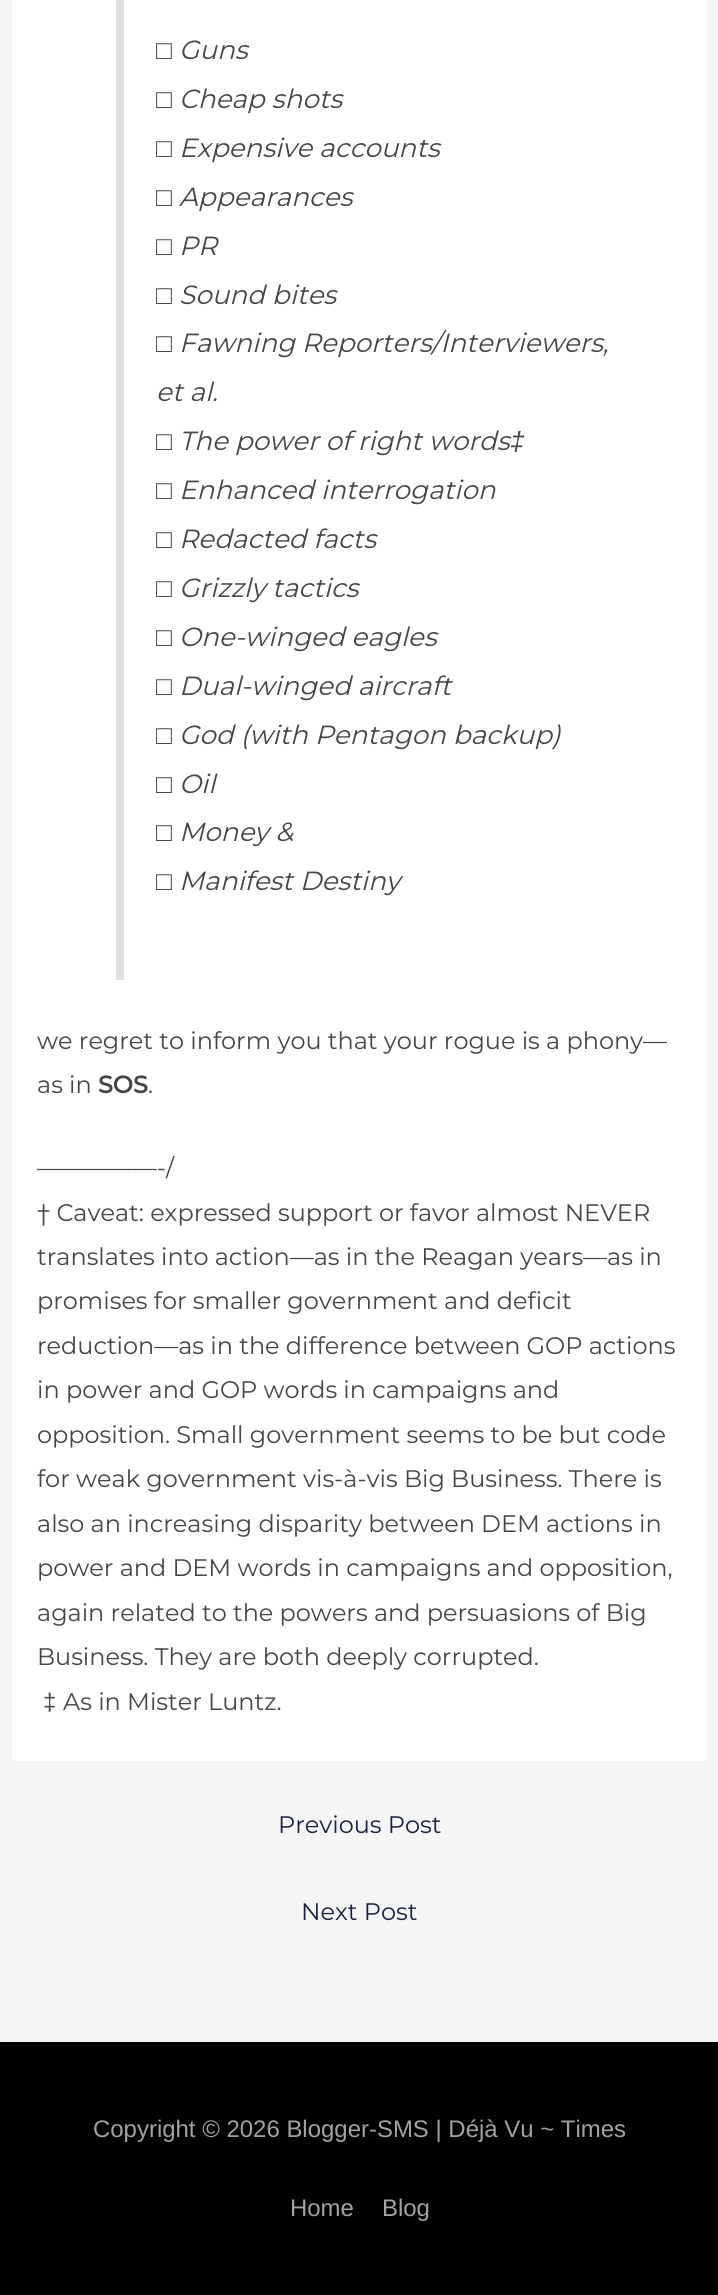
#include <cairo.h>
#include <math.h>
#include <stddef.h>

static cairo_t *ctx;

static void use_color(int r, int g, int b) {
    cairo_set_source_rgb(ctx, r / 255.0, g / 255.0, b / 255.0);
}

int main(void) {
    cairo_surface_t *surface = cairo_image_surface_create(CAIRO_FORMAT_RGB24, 718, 2295);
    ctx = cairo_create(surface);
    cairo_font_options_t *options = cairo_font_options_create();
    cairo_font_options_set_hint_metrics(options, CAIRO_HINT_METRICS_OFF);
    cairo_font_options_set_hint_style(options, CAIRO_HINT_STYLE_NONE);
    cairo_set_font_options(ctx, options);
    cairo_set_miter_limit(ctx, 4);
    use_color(245, 245, 245);
    cairo_paint(ctx);
    use_color(255, 255, 255);
    cairo_rectangle(ctx, 12, 0, 695, 1761);
    cairo_fill(ctx);
    use_color(221, 221, 221);
    cairo_rectangle(ctx, 116, 0, 8, 980);
    cairo_fill(ctx);
    cairo_select_font_face(ctx, "Liberation Sans", CAIRO_FONT_SLANT_ITALIC, CAIRO_FONT_WEIGHT_NORMAL);
    cairo_set_font_size(ctx, 26.3);
    use_color(69, 69, 69);
    cairo_move_to(ctx, 156, 59);
    cairo_show_text(ctx, "□");
    cairo_select_font_face(ctx, "Montserrat", CAIRO_FONT_SLANT_ITALIC, CAIRO_FONT_WEIGHT_NORMAL);
    cairo_move_to(ctx, 179, 59);
    cairo_show_text(ctx, "Guns");
    cairo_select_font_face(ctx, "Liberation Sans", CAIRO_FONT_SLANT_ITALIC, CAIRO_FONT_WEIGHT_NORMAL);
    cairo_move_to(ctx, 156, 108);
    cairo_show_text(ctx, "□");
    cairo_select_font_face(ctx, "Montserrat", CAIRO_FONT_SLANT_ITALIC, CAIRO_FONT_WEIGHT_NORMAL);
    cairo_move_to(ctx, 179, 108);
    cairo_show_text(ctx, "Cheap shots");
    cairo_select_font_face(ctx, "Liberation Sans", CAIRO_FONT_SLANT_ITALIC, CAIRO_FONT_WEIGHT_NORMAL);
    cairo_move_to(ctx, 156, 157);
    cairo_show_text(ctx, "□");
    cairo_select_font_face(ctx, "Montserrat", CAIRO_FONT_SLANT_ITALIC, CAIRO_FONT_WEIGHT_NORMAL);
    cairo_move_to(ctx, 179, 157);
    cairo_show_text(ctx, "Expensive accounts");
    cairo_select_font_face(ctx, "Liberation Sans", CAIRO_FONT_SLANT_ITALIC, CAIRO_FONT_WEIGHT_NORMAL);
    cairo_move_to(ctx, 156, 206);
    cairo_show_text(ctx, "□");
    cairo_select_font_face(ctx, "Montserrat", CAIRO_FONT_SLANT_ITALIC, CAIRO_FONT_WEIGHT_NORMAL);
    cairo_move_to(ctx, 179, 206);
    cairo_show_text(ctx, "Appearances");
    cairo_select_font_face(ctx, "Liberation Sans", CAIRO_FONT_SLANT_ITALIC, CAIRO_FONT_WEIGHT_NORMAL);
    cairo_move_to(ctx, 156, 255);
    cairo_show_text(ctx, "□");
    cairo_select_font_face(ctx, "Montserrat", CAIRO_FONT_SLANT_ITALIC, CAIRO_FONT_WEIGHT_NORMAL);
    cairo_move_to(ctx, 179, 255);
    cairo_show_text(ctx, "PR");
    cairo_select_font_face(ctx, "Liberation Sans", CAIRO_FONT_SLANT_ITALIC, CAIRO_FONT_WEIGHT_NORMAL);
    cairo_move_to(ctx, 156, 304);
    cairo_show_text(ctx, "□");
    cairo_select_font_face(ctx, "Montserrat", CAIRO_FONT_SLANT_ITALIC, CAIRO_FONT_WEIGHT_NORMAL);
    cairo_move_to(ctx, 179, 304);
    cairo_show_text(ctx, "Sound bites");
    cairo_select_font_face(ctx, "Liberation Sans", CAIRO_FONT_SLANT_ITALIC, CAIRO_FONT_WEIGHT_NORMAL);
    cairo_move_to(ctx, 156, 352);
    cairo_show_text(ctx, "□");
    cairo_select_font_face(ctx, "Montserrat", CAIRO_FONT_SLANT_ITALIC, CAIRO_FONT_WEIGHT_NORMAL);
    cairo_move_to(ctx, 179, 352);
    cairo_show_text(ctx, "Fawning Reporters/Interviewers,");
    cairo_move_to(ctx, 156, 401);
    cairo_show_text(ctx, "et al.");
    cairo_select_font_face(ctx, "Liberation Sans", CAIRO_FONT_SLANT_ITALIC, CAIRO_FONT_WEIGHT_NORMAL);
    cairo_move_to(ctx, 156, 450);
    cairo_show_text(ctx, "□");
    cairo_select_font_face(ctx, "Montserrat", CAIRO_FONT_SLANT_ITALIC, CAIRO_FONT_WEIGHT_NORMAL);
    cairo_move_to(ctx, 179, 450);
    cairo_show_text(ctx, "The power of right words");
    cairo_select_font_face(ctx, "Liberation Sans", CAIRO_FONT_SLANT_ITALIC, CAIRO_FONT_WEIGHT_NORMAL);
    cairo_move_to(ctx, 510, 450);
    cairo_show_text(ctx, "‡");
    cairo_move_to(ctx, 156, 499);
    cairo_show_text(ctx, "□");
    cairo_select_font_face(ctx, "Montserrat", CAIRO_FONT_SLANT_ITALIC, CAIRO_FONT_WEIGHT_NORMAL);
    cairo_move_to(ctx, 179, 499);
    cairo_show_text(ctx, "Enhanced interrogation");
    cairo_select_font_face(ctx, "Liberation Sans", CAIRO_FONT_SLANT_ITALIC, CAIRO_FONT_WEIGHT_NORMAL);
    cairo_move_to(ctx, 156, 548);
    cairo_show_text(ctx, "□");
    cairo_select_font_face(ctx, "Montserrat", CAIRO_FONT_SLANT_ITALIC, CAIRO_FONT_WEIGHT_NORMAL);
    cairo_move_to(ctx, 179, 548);
    cairo_show_text(ctx, "Redacted facts");
    cairo_select_font_face(ctx, "Liberation Sans", CAIRO_FONT_SLANT_ITALIC, CAIRO_FONT_WEIGHT_NORMAL);
    cairo_move_to(ctx, 156, 597);
    cairo_show_text(ctx, "□");
    cairo_select_font_face(ctx, "Montserrat", CAIRO_FONT_SLANT_ITALIC, CAIRO_FONT_WEIGHT_NORMAL);
    cairo_move_to(ctx, 179, 597);
    cairo_show_text(ctx, "Grizzly tactics");
    cairo_select_font_face(ctx, "Liberation Sans", CAIRO_FONT_SLANT_ITALIC, CAIRO_FONT_WEIGHT_NORMAL);
    cairo_move_to(ctx, 156, 646);
    cairo_show_text(ctx, "□");
    cairo_select_font_face(ctx, "Montserrat", CAIRO_FONT_SLANT_ITALIC, CAIRO_FONT_WEIGHT_NORMAL);
    cairo_move_to(ctx, 179, 646);
    cairo_show_text(ctx, "One-winged eagles");
    cairo_select_font_face(ctx, "Liberation Sans", CAIRO_FONT_SLANT_ITALIC, CAIRO_FONT_WEIGHT_NORMAL);
    cairo_move_to(ctx, 156, 695);
    cairo_show_text(ctx, "□");
    cairo_select_font_face(ctx, "Montserrat", CAIRO_FONT_SLANT_ITALIC, CAIRO_FONT_WEIGHT_NORMAL);
    cairo_move_to(ctx, 179, 695);
    cairo_show_text(ctx, "Dual-winged aircraft");
    cairo_select_font_face(ctx, "Liberation Sans", CAIRO_FONT_SLANT_ITALIC, CAIRO_FONT_WEIGHT_NORMAL);
    cairo_move_to(ctx, 156, 744);
    cairo_show_text(ctx, "□");
    cairo_select_font_face(ctx, "Montserrat", CAIRO_FONT_SLANT_ITALIC, CAIRO_FONT_WEIGHT_NORMAL);
    cairo_move_to(ctx, 179, 744);
    cairo_show_text(ctx, "God (with Pentagon backup)");
    cairo_select_font_face(ctx, "Liberation Sans", CAIRO_FONT_SLANT_ITALIC, CAIRO_FONT_WEIGHT_NORMAL);
    cairo_move_to(ctx, 156, 793);
    cairo_show_text(ctx, "□");
    cairo_select_font_face(ctx, "Montserrat", CAIRO_FONT_SLANT_ITALIC, CAIRO_FONT_WEIGHT_NORMAL);
    cairo_move_to(ctx, 179, 793);
    cairo_show_text(ctx, "Oil");
    cairo_select_font_face(ctx, "Liberation Sans", CAIRO_FONT_SLANT_ITALIC, CAIRO_FONT_WEIGHT_NORMAL);
    cairo_move_to(ctx, 156, 841);
    cairo_show_text(ctx, "□");
    cairo_select_font_face(ctx, "Montserrat", CAIRO_FONT_SLANT_ITALIC, CAIRO_FONT_WEIGHT_NORMAL);
    cairo_move_to(ctx, 179, 841);
    cairo_show_text(ctx, "Money &");
    cairo_select_font_face(ctx, "Liberation Sans", CAIRO_FONT_SLANT_ITALIC, CAIRO_FONT_WEIGHT_NORMAL);
    cairo_move_to(ctx, 156, 890);
    cairo_show_text(ctx, "□");
    cairo_select_font_face(ctx, "Montserrat", CAIRO_FONT_SLANT_ITALIC, CAIRO_FONT_WEIGHT_NORMAL);
    cairo_move_to(ctx, 179, 890);
    cairo_show_text(ctx, "Manifest Destiny");
    cairo_select_font_face(ctx, "Montserrat", CAIRO_FONT_SLANT_NORMAL, CAIRO_FONT_WEIGHT_NORMAL);
    cairo_set_font_size(ctx, 23.95);
    cairo_move_to(ctx, 37, 1049);
    cairo_show_text(ctx, "we regret to inform you that your rogue is a phony—");
    cairo_move_to(ctx, 37, 1093);
    cairo_show_text(ctx, "as in");
    cairo_select_font_face(ctx, "Montserrat", CAIRO_FONT_SLANT_NORMAL, CAIRO_FONT_WEIGHT_BOLD);
    cairo_move_to(ctx, 98, 1093);
    cairo_show_text(ctx, "SOS");
    cairo_select_font_face(ctx, "Montserrat", CAIRO_FONT_SLANT_NORMAL, CAIRO_FONT_WEIGHT_NORMAL);
    cairo_move_to(ctx, 148, 1093);
    cairo_show_text(ctx, ".");
    cairo_move_to(ctx, 37, 1176);
    cairo_show_text(ctx, "—————-/");
    cairo_move_to(ctx, 37, 1221);
    cairo_show_text(ctx, "† Caveat: expressed support or favor almost NEVER");
    cairo_move_to(ctx, 37, 1265);
    cairo_show_text(ctx, "translates into action—as in the Reagan years—as in");
    cairo_move_to(ctx, 37, 1309);
    cairo_show_text(ctx, "promises for smaller government and deficit");
    cairo_move_to(ctx, 37, 1354);
    cairo_show_text(ctx, "reduction—as in the difference between GOP actions");
    cairo_move_to(ctx, 37, 1398);
    cairo_show_text(ctx, "in power and GOP words in campaigns and");
    cairo_move_to(ctx, 37, 1443);
    cairo_show_text(ctx, "opposition. Small government seems to be but code");
    cairo_move_to(ctx, 37, 1487);
    cairo_show_text(ctx, "for weak government vis-à-vis Big Business. There is");
    cairo_move_to(ctx, 37, 1532);
    cairo_show_text(ctx, "also an increasing disparity between DEM actions in");
    cairo_move_to(ctx, 37, 1576);
    cairo_show_text(ctx, "power and DEM words in campaigns and opposition,");
    cairo_move_to(ctx, 37, 1621);
    cairo_show_text(ctx, "again related to the powers and persuasions of Big");
    cairo_move_to(ctx, 37, 1665);
    cairo_show_text(ctx, "Business. They are both deeply corrupted.");
    cairo_select_font_face(ctx, "Liberation Sans", CAIRO_FONT_SLANT_NORMAL, CAIRO_FONT_WEIGHT_NORMAL);
    cairo_move_to(ctx, 43, 1710);
    cairo_show_text(ctx, "‡");
    cairo_select_font_face(ctx, "Montserrat", CAIRO_FONT_SLANT_NORMAL, CAIRO_FONT_WEIGHT_NORMAL);
    cairo_move_to(ctx, 63, 1710);
    cairo_show_text(ctx, "As in Mister Luntz.");
    use_color(26, 32, 65);
    cairo_move_to(ctx, 278, 1833);
    cairo_show_text(ctx, "Previous Post");
    cairo_move_to(ctx, 301, 1920);
    cairo_show_text(ctx, "Next Post");
    use_color(0, 0, 0);
    cairo_rectangle(ctx, 0, 2042, 718, 253);
    cairo_fill(ctx);
    cairo_select_font_face(ctx, "Liberation Sans", CAIRO_FONT_SLANT_NORMAL, CAIRO_FONT_WEIGHT_NORMAL);
    use_color(163, 163, 163);
    cairo_move_to(ctx, 93, 2137);
    cairo_show_text(ctx, "Copyright © 2026 Blogger-SMS | Déjà Vu ~ Times");
    cairo_move_to(ctx, 290, 2216);
    cairo_show_text(ctx, "Home");
    cairo_move_to(ctx, 382, 2216);
    cairo_show_text(ctx, "Blog");
    cairo_surface_write_to_png(surface, "result.png");
    cairo_font_options_destroy(options);
    cairo_destroy(ctx);
    cairo_surface_destroy(surface);
    return 0;
}
